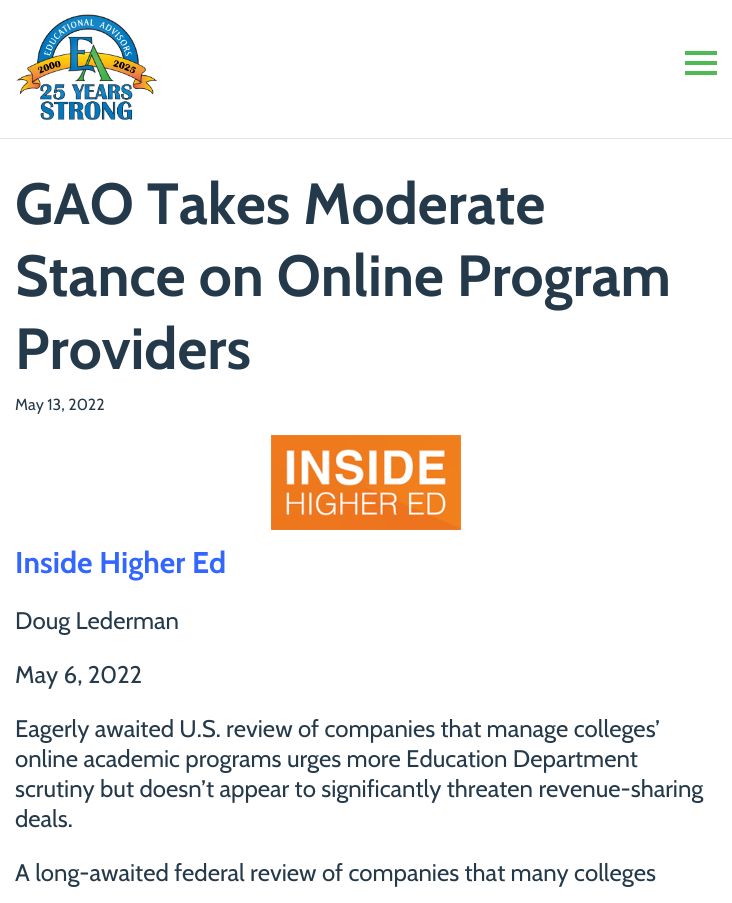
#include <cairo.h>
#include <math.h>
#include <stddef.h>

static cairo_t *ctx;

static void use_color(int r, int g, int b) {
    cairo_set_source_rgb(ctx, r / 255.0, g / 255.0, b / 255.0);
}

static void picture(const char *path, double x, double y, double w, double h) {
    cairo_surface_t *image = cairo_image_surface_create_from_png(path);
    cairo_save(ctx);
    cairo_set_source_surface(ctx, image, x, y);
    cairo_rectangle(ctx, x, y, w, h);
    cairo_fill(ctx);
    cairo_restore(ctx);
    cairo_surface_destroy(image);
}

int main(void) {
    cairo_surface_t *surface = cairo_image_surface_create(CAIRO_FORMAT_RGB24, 732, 903);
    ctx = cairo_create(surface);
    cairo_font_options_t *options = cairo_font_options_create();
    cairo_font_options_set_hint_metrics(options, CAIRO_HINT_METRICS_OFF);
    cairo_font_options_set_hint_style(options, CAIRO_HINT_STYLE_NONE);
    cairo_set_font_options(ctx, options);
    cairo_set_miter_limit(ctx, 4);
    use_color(255, 255, 255);
    cairo_paint(ctx);
    use_color(229, 229, 229);
    cairo_rectangle(ctx, 0, 138, 732, 1);
    cairo_fill(ctx);
    picture("img1.png", 16, 14, 141, 106);
    use_color(79, 185, 83);
    cairo_rectangle(ctx, 685, 61, 32, 4);
    cairo_fill(ctx);
    cairo_rectangle(ctx, 685, 51, 32, 4);
    cairo_fill(ctx);
    cairo_rectangle(ctx, 685, 71, 32, 4);
    cairo_fill(ctx);
    cairo_select_font_face(ctx, "Cabin", CAIRO_FONT_SLANT_NORMAL, CAIRO_FONT_WEIGHT_BOLD);
    cairo_set_font_size(ctx, 58);
    use_color(36, 57, 74);
    cairo_move_to(ctx, 15, 224);
    cairo_show_text(ctx, "GAO Takes Moderate");
    cairo_move_to(ctx, 15, 296);
    cairo_show_text(ctx, "Stance on Online Program");
    cairo_move_to(ctx, 15, 369);
    cairo_show_text(ctx, "Providers");
    cairo_select_font_face(ctx, "Cabin", CAIRO_FONT_SLANT_NORMAL, CAIRO_FONT_WEIGHT_NORMAL);
    cairo_set_font_size(ctx, 16);
    cairo_move_to(ctx, 15, 410);
    cairo_show_text(ctx, "May 13, 2022");
    picture("img2.png", 271, 435, 190, 95);
    cairo_select_font_face(ctx, "Cabin", CAIRO_FONT_SLANT_NORMAL, CAIRO_FONT_WEIGHT_BOLD);
    cairo_set_font_size(ctx, 30);
    use_color(51, 102, 255);
    cairo_move_to(ctx, 15, 573);
    cairo_show_text(ctx, "Inside Higher Ed");
    cairo_select_font_face(ctx, "Cabin", CAIRO_FONT_SLANT_NORMAL, CAIRO_FONT_WEIGHT_NORMAL);
    cairo_set_font_size(ctx, 24);
    use_color(36, 57, 74);
    cairo_move_to(ctx, 15, 629);
    cairo_show_text(ctx, "Doug Lederman");
    cairo_move_to(ctx, 15, 683);
    cairo_show_text(ctx, "May 6, 2022");
    cairo_move_to(ctx, 15, 737);
    cairo_show_text(ctx, "Eagerly awaited U.S. review of companies that manage colleges’");
    cairo_move_to(ctx, 15, 767);
    cairo_show_text(ctx, "online academic programs urges more Education Department");
    cairo_move_to(ctx, 15, 797);
    cairo_show_text(ctx, "scrutiny but doesn’t appear to significantly threaten revenue-sharing");
    cairo_move_to(ctx, 15, 827);
    cairo_show_text(ctx, "deals.");
    cairo_move_to(ctx, 15, 881);
    cairo_show_text(ctx, "A long-awaited federal review of companies that many colleges");
    cairo_surface_write_to_png(surface, "result.png");
    cairo_font_options_destroy(options);
    cairo_destroy(ctx);
    cairo_surface_destroy(surface);
    return 0;
}
